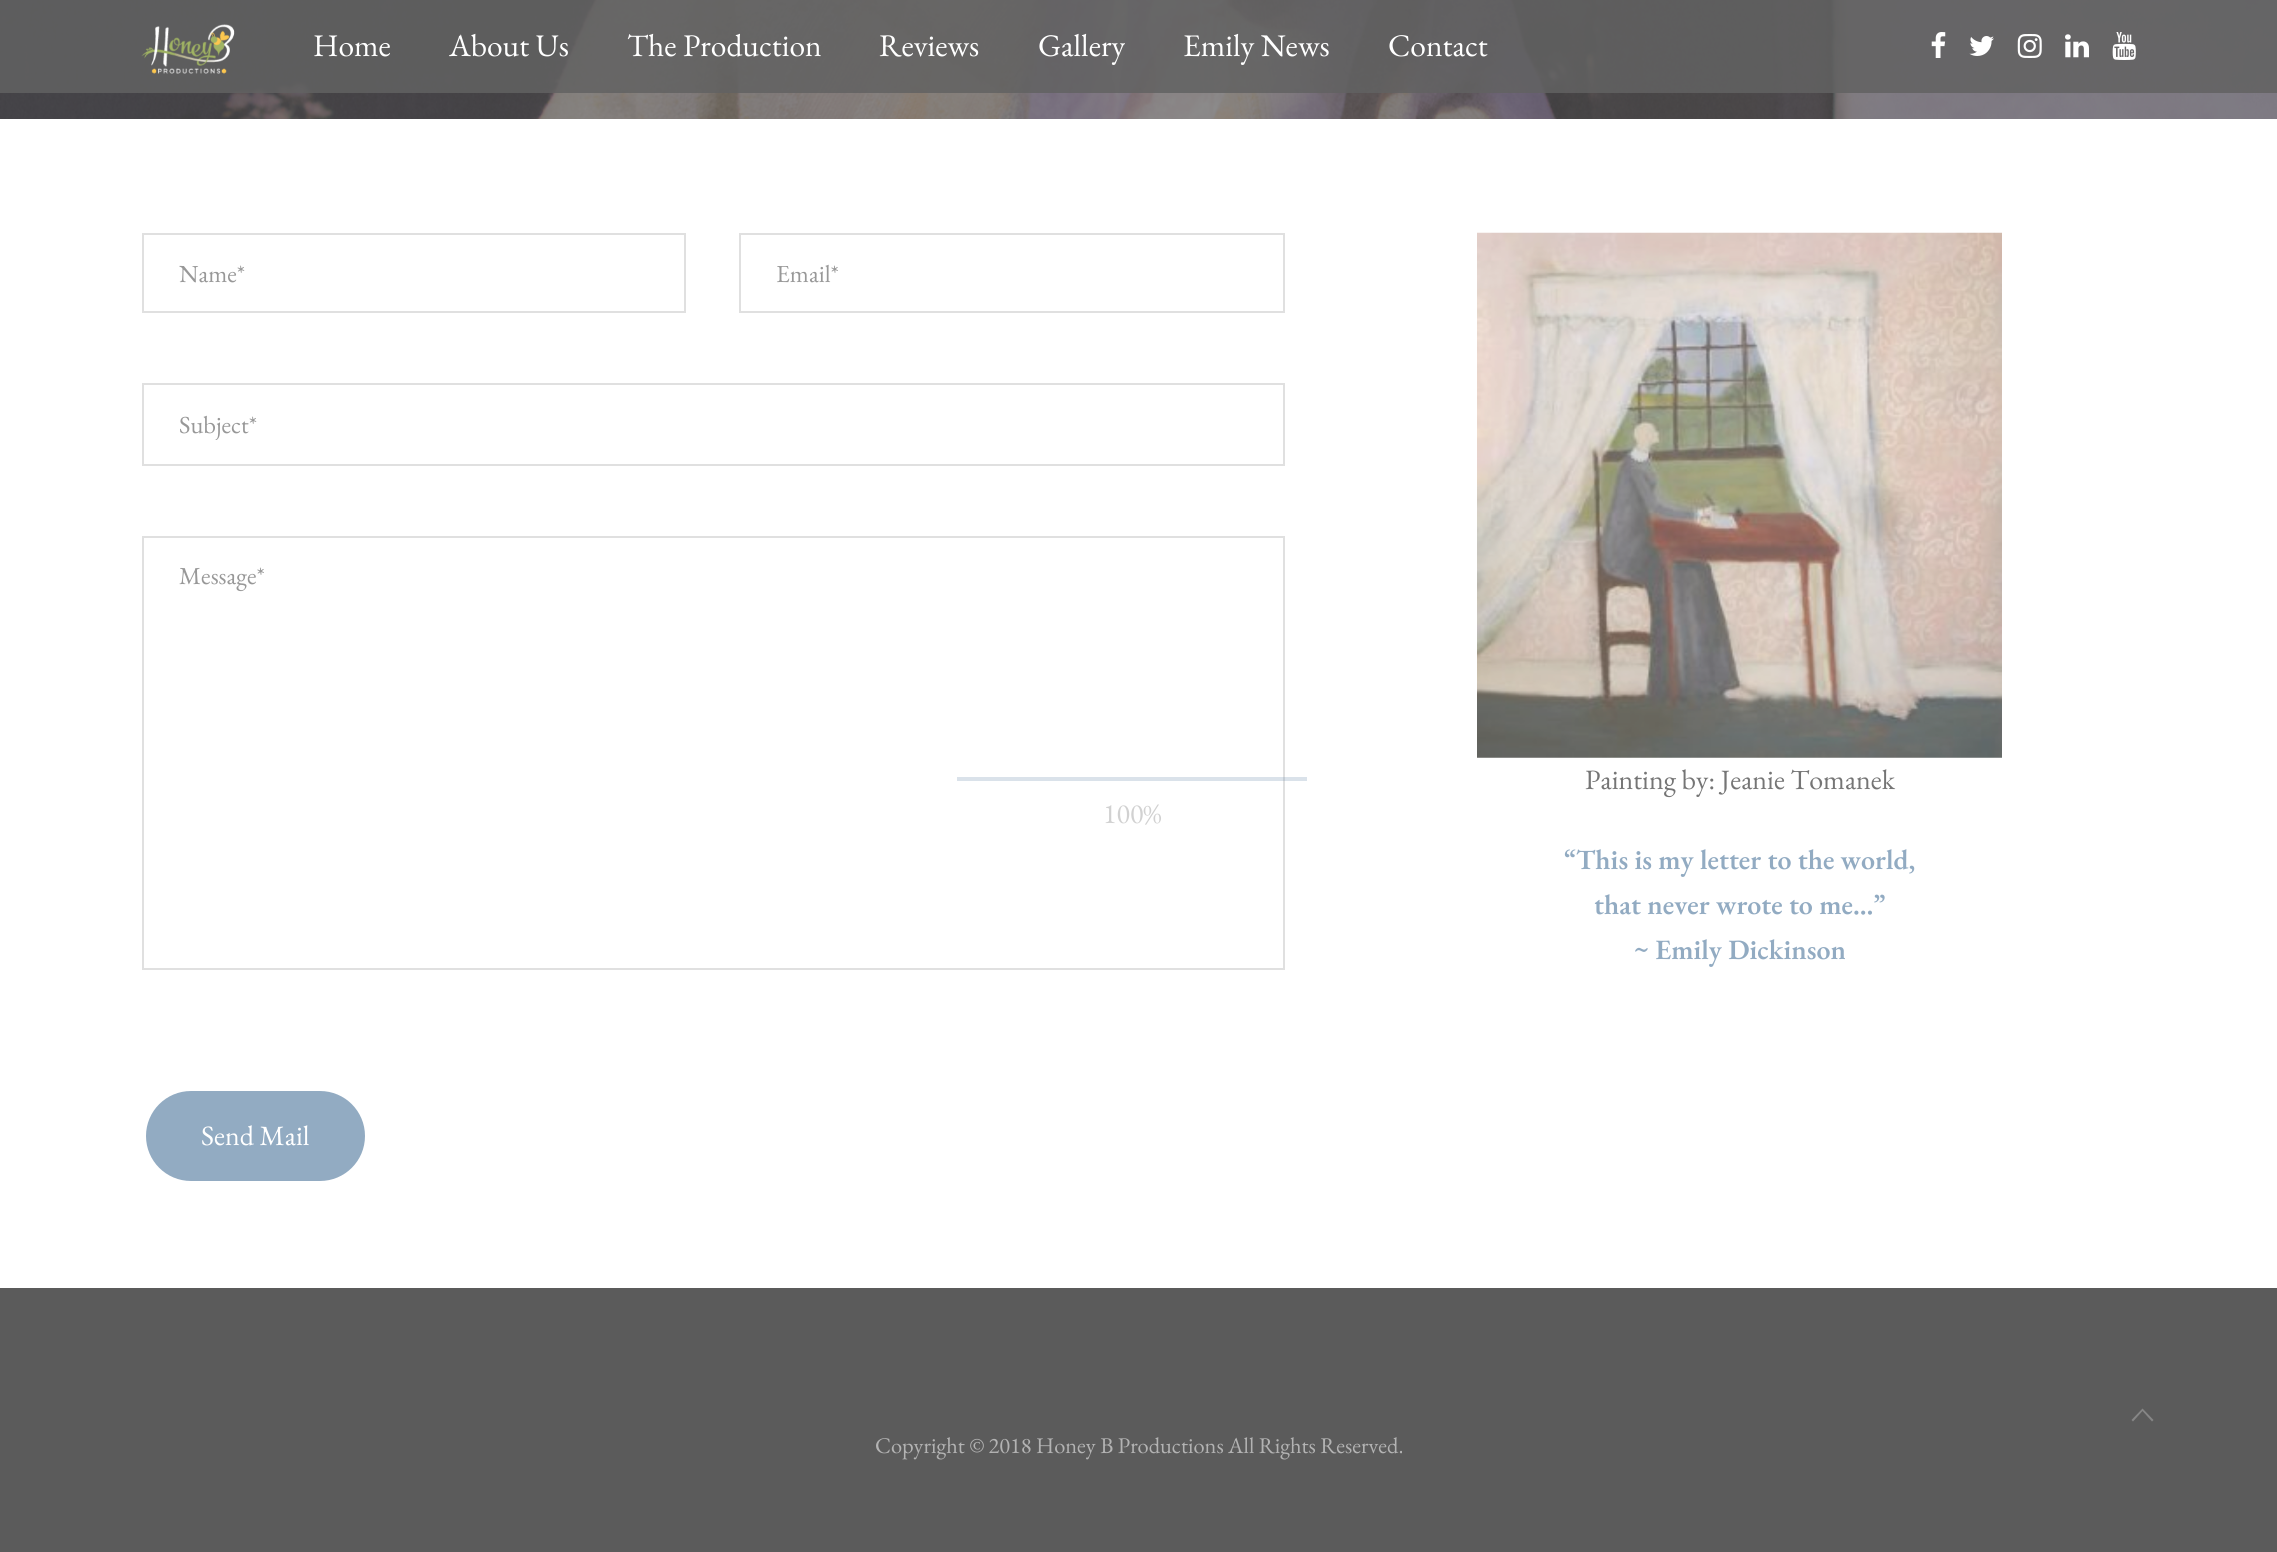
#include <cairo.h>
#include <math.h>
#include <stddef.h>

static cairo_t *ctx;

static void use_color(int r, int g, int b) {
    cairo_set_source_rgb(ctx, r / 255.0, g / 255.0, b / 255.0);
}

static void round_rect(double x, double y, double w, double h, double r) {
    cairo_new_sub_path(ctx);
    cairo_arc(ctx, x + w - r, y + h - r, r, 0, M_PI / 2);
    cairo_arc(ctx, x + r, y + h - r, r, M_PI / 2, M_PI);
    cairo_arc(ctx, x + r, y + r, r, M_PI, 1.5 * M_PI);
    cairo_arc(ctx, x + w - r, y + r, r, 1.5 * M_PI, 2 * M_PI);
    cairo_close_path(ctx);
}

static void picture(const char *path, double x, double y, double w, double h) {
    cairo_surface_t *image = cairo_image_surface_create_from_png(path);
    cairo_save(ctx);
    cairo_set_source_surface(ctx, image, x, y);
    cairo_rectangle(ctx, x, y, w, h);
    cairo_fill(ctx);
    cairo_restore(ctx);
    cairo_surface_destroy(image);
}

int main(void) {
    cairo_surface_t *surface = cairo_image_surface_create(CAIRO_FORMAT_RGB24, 2277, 1552);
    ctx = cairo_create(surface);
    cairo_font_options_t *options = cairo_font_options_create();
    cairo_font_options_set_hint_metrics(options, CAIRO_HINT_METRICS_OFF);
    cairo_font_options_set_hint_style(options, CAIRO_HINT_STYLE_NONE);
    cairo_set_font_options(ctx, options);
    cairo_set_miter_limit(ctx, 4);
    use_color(255, 255, 255);
    cairo_paint(ctx);
    picture("img7.png", 0, 0, 2277, 119);
    cairo_set_source_rgba(ctx, 0.384, 0.384, 0.384, 0.85);
    cairo_rectangle(ctx, 0, 0, 2277, 93);
    cairo_fill(ctx);
    picture("img1.png", 141, 24, 94, 50);
    cairo_select_font_face(ctx, "EB Garamond", CAIRO_FONT_SLANT_NORMAL, CAIRO_FONT_WEIGHT_NORMAL);
    cairo_set_font_size(ctx, 31.5);
    use_color(255, 255, 255);
    cairo_move_to(ctx, 313, 56);
    cairo_show_text(ctx, "Home");
    cairo_move_to(ctx, 449, 56);
    cairo_show_text(ctx, "About Us");
    cairo_move_to(ctx, 627, 56);
    cairo_show_text(ctx, "The Production");
    cairo_move_to(ctx, 879, 56);
    cairo_show_text(ctx, "Reviews");
    cairo_move_to(ctx, 1038, 56);
    cairo_show_text(ctx, "Gallery");
    cairo_move_to(ctx, 1183, 56);
    cairo_show_text(ctx, "Emily News");
    cairo_move_to(ctx, 1388, 56);
    cairo_show_text(ctx, "Contact");
    picture("img2.png", 1931, 32, 15, 26);
    picture("img3.png", 1969, 36, 25, 20);
    picture("img4.png", 2017, 34, 25, 24);
    picture("img5.png", 2065, 34, 24, 24);
    picture("img6.png", 2112, 32, 24, 28);
    cairo_rectangle(ctx, 143, 234, 542, 78);
    use_color(224, 224, 224);
    cairo_stroke(ctx);
    cairo_set_font_size(ctx, 24.5);
    use_color(152, 152, 152);
    cairo_move_to(ctx, 179, 282);
    cairo_show_text(ctx, "Name*");
    cairo_rectangle(ctx, 740, 234, 544, 78);
    use_color(224, 224, 224);
    cairo_stroke(ctx);
    use_color(152, 152, 152);
    cairo_move_to(ctx, 776, 282);
    cairo_show_text(ctx, "Email*");
    cairo_rectangle(ctx, 143, 384, 1141, 81);
    use_color(224, 224, 224);
    cairo_stroke(ctx);
    use_color(152, 152, 152);
    cairo_move_to(ctx, 179, 433);
    cairo_show_text(ctx, "Subject*");
    cairo_rectangle(ctx, 143, 537, 1141, 432);
    use_color(224, 224, 224);
    cairo_stroke(ctx);
    use_color(152, 152, 152);
    cairo_move_to(ctx, 179, 584);
    cairo_show_text(ctx, "Message*");
    use_color(146, 171, 194);
    round_rect(144, 1089, 223, 94, 47);
    cairo_fill_preserve(ctx);
    use_color(255, 255, 255);
    cairo_set_line_width(ctx, 4);
    cairo_stroke(ctx);
    cairo_set_font_size(ctx, 28);
    cairo_move_to(ctx, 201, 1145);
    cairo_show_text(ctx, "Send Mail");
    picture("img8.png", 1477, 232, 525, 526);
    use_color(117, 117, 117);
    cairo_move_to(ctx, 1585, 789);
    cairo_show_text(ctx, "Painting by: Jeanie Tomanek");
    cairo_select_font_face(ctx, "EB Garamond SemiBold", CAIRO_FONT_SLANT_NORMAL, CAIRO_FONT_WEIGHT_NORMAL);
    use_color(146, 171, 194);
    cairo_move_to(ctx, 1564, 869);
    cairo_show_text(ctx, "“This is my letter to the world,");
    cairo_move_to(ctx, 1594, 914);
    cairo_show_text(ctx, "that never wrote to me…”");
    cairo_move_to(ctx, 1634, 959);
    cairo_show_text(ctx, "~ Emily Dickinson");
    use_color(91, 91, 91);
    cairo_rectangle(ctx, 0, 1288, 2277, 264);
    cairo_fill(ctx);
    cairo_select_font_face(ctx, "EB Garamond", CAIRO_FONT_SLANT_NORMAL, CAIRO_FONT_WEIGHT_NORMAL);
    cairo_set_font_size(ctx, 22.4);
    use_color(179, 179, 179);
    cairo_move_to(ctx, 875, 1453);
    cairo_show_text(ctx, "Copyright © 2018 Honey B Productions All Rights Reserved.");
    cairo_set_source_rgba(ctx, 0.431, 0.561, 0.682, 0.25);
    cairo_rectangle(ctx, 957, 777, 350, 4);
    cairo_fill(ctx);
    cairo_set_font_size(ctx, 28);
    use_color(209, 209, 209);
    cairo_move_to(ctx, 1103, 823);
    cairo_show_text(ctx, "100%");
    use_color(134, 134, 134);
    cairo_new_path(ctx);
    cairo_move_to(ctx, 2152, 1421.5);
    cairo_line_to(ctx, 2142.5, 1411);
    cairo_line_to(ctx, 2133, 1421.5);
    cairo_line_to(ctx, 2131.5, 1420);
    cairo_line_to(ctx, 2142.5, 1408.5);
    cairo_line_to(ctx, 2153.5, 1420);
    cairo_close_path(ctx);
    cairo_fill(ctx);
    cairo_surface_write_to_png(surface, "result.png");
    cairo_font_options_destroy(options);
    cairo_destroy(ctx);
    cairo_surface_destroy(surface);
    return 0;
}
